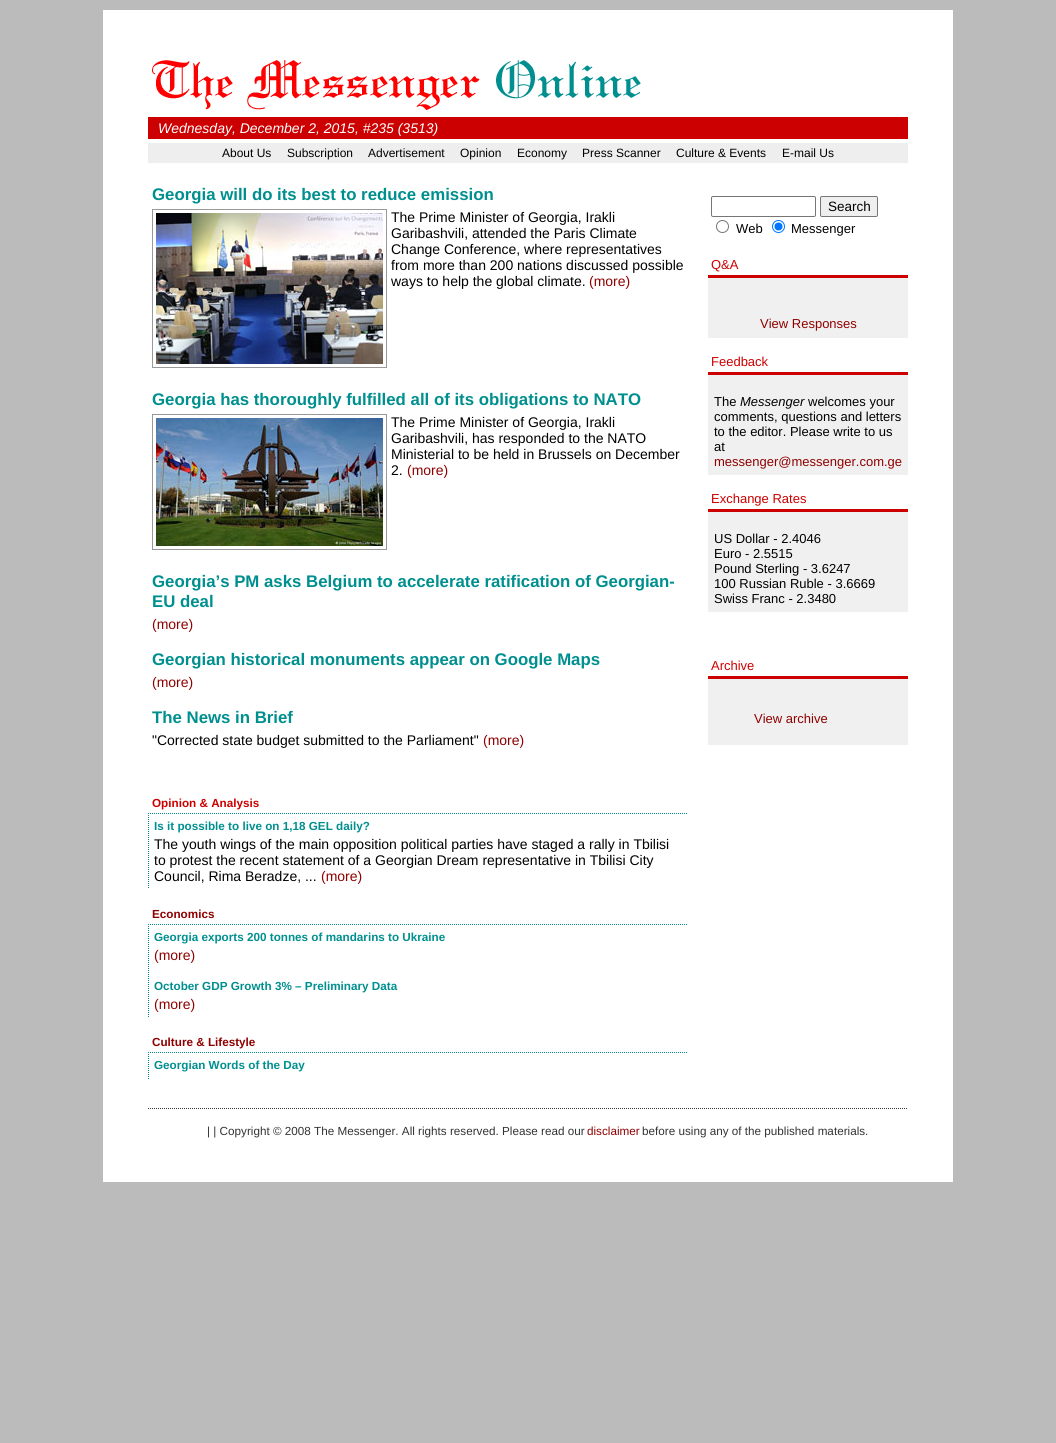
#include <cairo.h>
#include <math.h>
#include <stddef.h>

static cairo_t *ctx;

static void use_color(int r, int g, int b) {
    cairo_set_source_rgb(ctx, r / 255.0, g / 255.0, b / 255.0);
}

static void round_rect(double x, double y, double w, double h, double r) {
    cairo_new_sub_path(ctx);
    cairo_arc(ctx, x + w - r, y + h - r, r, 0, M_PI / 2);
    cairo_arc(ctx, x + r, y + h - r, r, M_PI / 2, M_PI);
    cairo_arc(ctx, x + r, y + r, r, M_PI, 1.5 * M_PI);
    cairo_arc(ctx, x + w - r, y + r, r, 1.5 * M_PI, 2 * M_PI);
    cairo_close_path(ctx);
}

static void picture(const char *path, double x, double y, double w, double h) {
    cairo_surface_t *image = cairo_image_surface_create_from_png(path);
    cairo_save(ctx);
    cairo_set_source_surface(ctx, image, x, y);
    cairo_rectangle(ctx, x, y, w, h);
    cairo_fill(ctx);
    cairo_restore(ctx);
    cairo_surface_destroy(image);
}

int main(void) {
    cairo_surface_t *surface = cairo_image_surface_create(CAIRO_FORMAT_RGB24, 1056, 1443);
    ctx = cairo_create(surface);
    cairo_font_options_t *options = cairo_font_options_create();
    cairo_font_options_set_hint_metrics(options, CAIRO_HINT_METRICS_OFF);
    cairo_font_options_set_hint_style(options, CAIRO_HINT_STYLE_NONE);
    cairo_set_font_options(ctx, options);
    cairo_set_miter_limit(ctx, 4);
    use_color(187, 187, 187);
    cairo_paint(ctx);
    use_color(255, 255, 255);
    cairo_rectangle(ctx, 103, 10, 850, 1172);
    cairo_fill(ctx);
    picture("img1.png", 152, 60, 489, 50);
    use_color(204, 0, 0);
    cairo_rectangle(ctx, 148, 117, 760, 22);
    cairo_fill(ctx);
    cairo_select_font_face(ctx, "Liberation Sans", CAIRO_FONT_SLANT_ITALIC, CAIRO_FONT_WEIGHT_NORMAL);
    cairo_set_font_size(ctx, 14);
    use_color(255, 255, 255);
    cairo_move_to(ctx, 158, 133);
    cairo_show_text(ctx, "Wednesday, December 2, 2015, #235 (3513)");
    use_color(238, 238, 238);
    cairo_rectangle(ctx, 148, 143, 760, 20);
    cairo_fill(ctx);
    cairo_select_font_face(ctx, "Liberation Sans", CAIRO_FONT_SLANT_NORMAL, CAIRO_FONT_WEIGHT_NORMAL);
    cairo_set_font_size(ctx, 12);
    use_color(0, 0, 0);
    cairo_move_to(ctx, 222, 157);
    cairo_show_text(ctx, "About Us");
    cairo_move_to(ctx, 287, 157);
    cairo_show_text(ctx, "Subscription");
    cairo_move_to(ctx, 368, 157);
    cairo_show_text(ctx, "Advertisement");
    cairo_move_to(ctx, 460, 157);
    cairo_show_text(ctx, "Opinion");
    cairo_move_to(ctx, 517, 157);
    cairo_show_text(ctx, "Economy");
    cairo_move_to(ctx, 582, 157);
    cairo_show_text(ctx, "Press Scanner");
    cairo_move_to(ctx, 676, 157);
    cairo_show_text(ctx, "Culture & Events");
    cairo_move_to(ctx, 782, 157);
    cairo_show_text(ctx, "E-mail Us");
    cairo_select_font_face(ctx, "Liberation Sans", CAIRO_FONT_SLANT_NORMAL, CAIRO_FONT_WEIGHT_BOLD);
    cairo_set_font_size(ctx, 16.8);
    use_color(0, 143, 143);
    cairo_move_to(ctx, 152, 200);
    cairo_show_text(ctx, "Georgia will do its best to reduce emission");
    cairo_rectangle(ctx, 152.5, 209.5, 234, 158);
    use_color(153, 153, 153);
    cairo_set_line_width(ctx, 1);
    cairo_stroke(ctx);
    picture("img2.png", 156, 213, 227, 151);
    cairo_select_font_face(ctx, "Liberation Sans", CAIRO_FONT_SLANT_NORMAL, CAIRO_FONT_WEIGHT_NORMAL);
    cairo_set_font_size(ctx, 14);
    use_color(0, 0, 0);
    cairo_move_to(ctx, 391, 222);
    cairo_show_text(ctx, "The Prime Minister of Georgia, Irakli");
    cairo_move_to(ctx, 391, 238);
    cairo_show_text(ctx, "Garibashvili, attended the Paris Climate");
    cairo_move_to(ctx, 391, 254);
    cairo_show_text(ctx, "Change Conference, where representatives");
    cairo_move_to(ctx, 391, 270);
    cairo_show_text(ctx, "from more than 200 nations discussed possible");
    cairo_move_to(ctx, 391, 286);
    cairo_show_text(ctx, "ways to help the global climate.");
    use_color(143, 0, 0);
    cairo_move_to(ctx, 589, 286);
    cairo_show_text(ctx, "(more)");
    cairo_select_font_face(ctx, "Liberation Sans", CAIRO_FONT_SLANT_NORMAL, CAIRO_FONT_WEIGHT_BOLD);
    cairo_set_font_size(ctx, 16.8);
    use_color(0, 143, 143);
    cairo_move_to(ctx, 152, 405);
    cairo_show_text(ctx, "Georgia has thoroughly fulfilled all of its obligations to NATO");
    cairo_rectangle(ctx, 152.5, 414.5, 234, 135);
    use_color(153, 153, 153);
    cairo_stroke(ctx);
    picture("img3.png", 156, 418, 227, 128);
    cairo_select_font_face(ctx, "Liberation Sans", CAIRO_FONT_SLANT_NORMAL, CAIRO_FONT_WEIGHT_NORMAL);
    cairo_set_font_size(ctx, 14);
    use_color(0, 0, 0);
    cairo_move_to(ctx, 391, 427);
    cairo_show_text(ctx, "The Prime Minister of Georgia, Irakli");
    cairo_move_to(ctx, 391, 443);
    cairo_show_text(ctx, "Garibashvili, has responded to the NATO");
    cairo_move_to(ctx, 391, 459);
    cairo_show_text(ctx, "Ministerial to be held in Brussels on December");
    cairo_move_to(ctx, 391, 475);
    cairo_show_text(ctx, "2.");
    use_color(143, 0, 0);
    cairo_move_to(ctx, 407, 475);
    cairo_show_text(ctx, "(more)");
    cairo_select_font_face(ctx, "Liberation Sans", CAIRO_FONT_SLANT_NORMAL, CAIRO_FONT_WEIGHT_BOLD);
    cairo_set_font_size(ctx, 16.8);
    use_color(0, 143, 143);
    cairo_move_to(ctx, 152, 587);
    cairo_show_text(ctx, "Georgia’s PM asks Belgium to accelerate ratification of Georgian-");
    cairo_move_to(ctx, 152, 607);
    cairo_show_text(ctx, "EU deal");
    cairo_select_font_face(ctx, "Liberation Sans", CAIRO_FONT_SLANT_NORMAL, CAIRO_FONT_WEIGHT_NORMAL);
    cairo_set_font_size(ctx, 14);
    use_color(143, 0, 0);
    cairo_move_to(ctx, 152, 629);
    cairo_show_text(ctx, "(more)");
    cairo_select_font_face(ctx, "Liberation Sans", CAIRO_FONT_SLANT_NORMAL, CAIRO_FONT_WEIGHT_BOLD);
    cairo_set_font_size(ctx, 16.8);
    use_color(0, 143, 143);
    cairo_move_to(ctx, 152, 665);
    cairo_show_text(ctx, "Georgian historical monuments appear on Google Maps");
    cairo_select_font_face(ctx, "Liberation Sans", CAIRO_FONT_SLANT_NORMAL, CAIRO_FONT_WEIGHT_NORMAL);
    cairo_set_font_size(ctx, 14);
    use_color(143, 0, 0);
    cairo_move_to(ctx, 152, 687);
    cairo_show_text(ctx, "(more)");
    cairo_select_font_face(ctx, "Liberation Sans", CAIRO_FONT_SLANT_NORMAL, CAIRO_FONT_WEIGHT_BOLD);
    cairo_set_font_size(ctx, 16.8);
    use_color(0, 143, 143);
    cairo_move_to(ctx, 152, 723);
    cairo_show_text(ctx, "The News in Brief");
    cairo_select_font_face(ctx, "Liberation Sans", CAIRO_FONT_SLANT_NORMAL, CAIRO_FONT_WEIGHT_NORMAL);
    cairo_set_font_size(ctx, 14);
    use_color(0, 0, 0);
    cairo_move_to(ctx, 152, 745);
    cairo_show_text(ctx, "\"Corrected state budget submitted to the Parliament\"");
    use_color(143, 0, 0);
    cairo_move_to(ctx, 483, 745);
    cairo_show_text(ctx, "(more)");
    cairo_select_font_face(ctx, "Liberation Sans", CAIRO_FONT_SLANT_NORMAL, CAIRO_FONT_WEIGHT_BOLD);
    cairo_set_font_size(ctx, 11.7);
    use_color(204, 0, 0);
    cairo_move_to(ctx, 152, 807);
    cairo_show_text(ctx, "Opinion & Analysis");
    cairo_new_path(ctx);
    cairo_move_to(ctx, 148, 813.5);
    cairo_line_to(ctx, 688, 813.5);
    use_color(0, 143, 143);
    cairo_set_dash(ctx, (double[]){1, 1}, 2, 0);
    cairo_stroke(ctx);
    cairo_new_path(ctx);
    cairo_move_to(ctx, 148.5, 813);
    cairo_line_to(ctx, 148.5, 889);
    cairo_stroke(ctx);
    cairo_move_to(ctx, 154, 830);
    cairo_show_text(ctx, "Is it possible to live on 1,18 GEL daily?");
    cairo_select_font_face(ctx, "Liberation Sans", CAIRO_FONT_SLANT_NORMAL, CAIRO_FONT_WEIGHT_NORMAL);
    cairo_set_font_size(ctx, 14);
    use_color(0, 0, 0);
    cairo_move_to(ctx, 154, 849);
    cairo_show_text(ctx, "The youth wings of the main opposition political parties have staged a rally in Tbilisi");
    cairo_move_to(ctx, 154, 865);
    cairo_show_text(ctx, "to protest the recent statement of a Georgian Dream representative in Tbilisi City");
    cairo_move_to(ctx, 154, 881);
    cairo_show_text(ctx, "Council, Rima Beradze, ...");
    use_color(143, 0, 0);
    cairo_move_to(ctx, 321, 881);
    cairo_show_text(ctx, "(more)");
    cairo_select_font_face(ctx, "Liberation Sans", CAIRO_FONT_SLANT_NORMAL, CAIRO_FONT_WEIGHT_BOLD);
    cairo_set_font_size(ctx, 11.7);
    cairo_move_to(ctx, 152, 918);
    cairo_show_text(ctx, "Economics");
    cairo_new_path(ctx);
    cairo_move_to(ctx, 148, 924.5);
    cairo_line_to(ctx, 688, 924.5);
    use_color(0, 143, 143);
    cairo_stroke(ctx);
    cairo_new_path(ctx);
    cairo_move_to(ctx, 148.5, 924);
    cairo_line_to(ctx, 148.5, 1017);
    cairo_stroke(ctx);
    cairo_move_to(ctx, 154, 941);
    cairo_show_text(ctx, "Georgia exports 200 tonnes of mandarins to Ukraine");
    cairo_select_font_face(ctx, "Liberation Sans", CAIRO_FONT_SLANT_NORMAL, CAIRO_FONT_WEIGHT_NORMAL);
    cairo_set_font_size(ctx, 14);
    use_color(143, 0, 0);
    cairo_move_to(ctx, 154, 960);
    cairo_show_text(ctx, "(more)");
    cairo_select_font_face(ctx, "Liberation Sans", CAIRO_FONT_SLANT_NORMAL, CAIRO_FONT_WEIGHT_BOLD);
    cairo_set_font_size(ctx, 11.7);
    use_color(0, 143, 143);
    cairo_move_to(ctx, 154, 990);
    cairo_show_text(ctx, "October GDP Growth 3% – Preliminary Data");
    cairo_select_font_face(ctx, "Liberation Sans", CAIRO_FONT_SLANT_NORMAL, CAIRO_FONT_WEIGHT_NORMAL);
    cairo_set_font_size(ctx, 14);
    use_color(143, 0, 0);
    cairo_move_to(ctx, 154, 1009);
    cairo_show_text(ctx, "(more)");
    cairo_select_font_face(ctx, "Liberation Sans", CAIRO_FONT_SLANT_NORMAL, CAIRO_FONT_WEIGHT_BOLD);
    cairo_set_font_size(ctx, 11.7);
    cairo_move_to(ctx, 152, 1046);
    cairo_show_text(ctx, "Culture & Lifestyle");
    cairo_new_path(ctx);
    cairo_move_to(ctx, 148, 1052.5);
    cairo_line_to(ctx, 688, 1052.5);
    use_color(0, 143, 143);
    cairo_stroke(ctx);
    cairo_new_path(ctx);
    cairo_move_to(ctx, 148.5, 1052);
    cairo_line_to(ctx, 148.5, 1080);
    cairo_stroke(ctx);
    cairo_move_to(ctx, 154, 1069);
    cairo_show_text(ctx, "Georgian Words of the Day");
    round_rect(711.5, 196.5, 104, 20, 1.5);
    use_color(118, 118, 118);
    cairo_set_dash(ctx, NULL, 0, 0);
    cairo_stroke(ctx);
    use_color(239, 239, 239);
    round_rect(820.5, 196.5, 57, 20, 1.5);
    cairo_fill_preserve(ctx);
    use_color(118, 118, 118);
    cairo_stroke(ctx);
    cairo_select_font_face(ctx, "Liberation Sans", CAIRO_FONT_SLANT_NORMAL, CAIRO_FONT_WEIGHT_NORMAL);
    cairo_set_font_size(ctx, 13.5);
    use_color(0, 0, 0);
    cairo_move_to(ctx, 828, 211);
    cairo_show_text(ctx, "Search");
    cairo_new_path(ctx);
    cairo_arc(ctx, 722.5, 226.5, 6, 0, 2 * M_PI);
    use_color(118, 118, 118);
    cairo_stroke(ctx);
    cairo_set_font_size(ctx, 13);
    use_color(0, 0, 0);
    cairo_move_to(ctx, 736, 233);
    cairo_show_text(ctx, "Web");
    cairo_new_path(ctx);
    cairo_arc(ctx, 778.5, 226.5, 6, 0, 2 * M_PI);
    use_color(0, 117, 255);
    cairo_stroke(ctx);
    cairo_arc(ctx, 778.5, 226.5, 4, 0, 2 * M_PI);
    cairo_fill(ctx);
    use_color(0, 0, 0);
    cairo_move_to(ctx, 791, 233);
    cairo_show_text(ctx, "Messenger");
    use_color(240, 240, 240);
    cairo_rectangle(ctx, 708, 278, 200, 60);
    cairo_fill(ctx);
    use_color(204, 0, 0);
    cairo_rectangle(ctx, 708, 275, 200, 3);
    cairo_fill(ctx);
    cairo_move_to(ctx, 711, 269);
    cairo_show_text(ctx, "Q&A");
    use_color(143, 0, 0);
    cairo_move_to(ctx, 760, 328);
    cairo_show_text(ctx, "View Responses");
    use_color(240, 240, 240);
    cairo_rectangle(ctx, 708, 375, 200, 100);
    cairo_fill(ctx);
    use_color(204, 0, 0);
    cairo_rectangle(ctx, 708, 372, 200, 3);
    cairo_fill(ctx);
    cairo_move_to(ctx, 711, 366);
    cairo_show_text(ctx, "Feedback");
    use_color(0, 0, 0);
    cairo_move_to(ctx, 714, 406);
    cairo_show_text(ctx, "The");
    cairo_select_font_face(ctx, "Liberation Sans", CAIRO_FONT_SLANT_ITALIC, CAIRO_FONT_WEIGHT_NORMAL);
    cairo_move_to(ctx, 740, 406);
    cairo_show_text(ctx, "Messenger");
    cairo_select_font_face(ctx, "Liberation Sans", CAIRO_FONT_SLANT_NORMAL, CAIRO_FONT_WEIGHT_NORMAL);
    cairo_move_to(ctx, 808, 406);
    cairo_show_text(ctx, "welcomes your");
    cairo_move_to(ctx, 714, 421);
    cairo_show_text(ctx, "comments, questions and letters");
    cairo_move_to(ctx, 714, 436);
    cairo_show_text(ctx, "to the editor. Please write to us");
    cairo_move_to(ctx, 714, 451);
    cairo_show_text(ctx, "at");
    use_color(143, 0, 0);
    cairo_move_to(ctx, 714, 466);
    cairo_show_text(ctx, "messenger@messenger.com.ge");
    use_color(240, 240, 240);
    cairo_rectangle(ctx, 708, 512, 200, 100);
    cairo_fill(ctx);
    use_color(204, 0, 0);
    cairo_rectangle(ctx, 708, 509, 200, 3);
    cairo_fill(ctx);
    cairo_move_to(ctx, 711, 503);
    cairo_show_text(ctx, "Exchange Rates");
    use_color(0, 0, 0);
    cairo_move_to(ctx, 714, 543);
    cairo_show_text(ctx, "US Dollar - 2.4046");
    cairo_move_to(ctx, 714, 558);
    cairo_show_text(ctx, "Euro - 2.5515");
    cairo_move_to(ctx, 714, 573);
    cairo_show_text(ctx, "Pound Sterling - 3.6247");
    cairo_move_to(ctx, 714, 588);
    cairo_show_text(ctx, "100 Russian Ruble - 3.6669");
    cairo_move_to(ctx, 714, 603);
    cairo_show_text(ctx, "Swiss Franc - 2.3480");
    use_color(240, 240, 240);
    cairo_rectangle(ctx, 708, 679, 200, 66);
    cairo_fill(ctx);
    use_color(204, 0, 0);
    cairo_rectangle(ctx, 708, 676, 200, 3);
    cairo_fill(ctx);
    cairo_move_to(ctx, 711, 670);
    cairo_show_text(ctx, "Archive");
    use_color(143, 0, 0);
    cairo_move_to(ctx, 754, 723);
    cairo_show_text(ctx, "View archive");
    cairo_new_path(ctx);
    cairo_move_to(ctx, 148, 1108.5);
    cairo_line_to(ctx, 908, 1108.5);
    use_color(51, 51, 51);
    cairo_set_dash(ctx, (double[]){1, 1}, 2, 0);
    cairo_stroke(ctx);
    cairo_set_font_size(ctx, 11.7);
    cairo_move_to(ctx, 207, 1135);
    cairo_show_text(ctx, "| | Copyright © 2008 The Messenger. All rights reserved. Please read our");
    use_color(143, 0, 0);
    cairo_move_to(ctx, 587, 1135);
    cairo_show_text(ctx, "disclaimer");
    use_color(51, 51, 51);
    cairo_move_to(ctx, 642, 1135);
    cairo_show_text(ctx, "before using any of the published materials.");
    cairo_surface_write_to_png(surface, "result.png");
    cairo_font_options_destroy(options);
    cairo_destroy(ctx);
    cairo_surface_destroy(surface);
    return 0;
}
